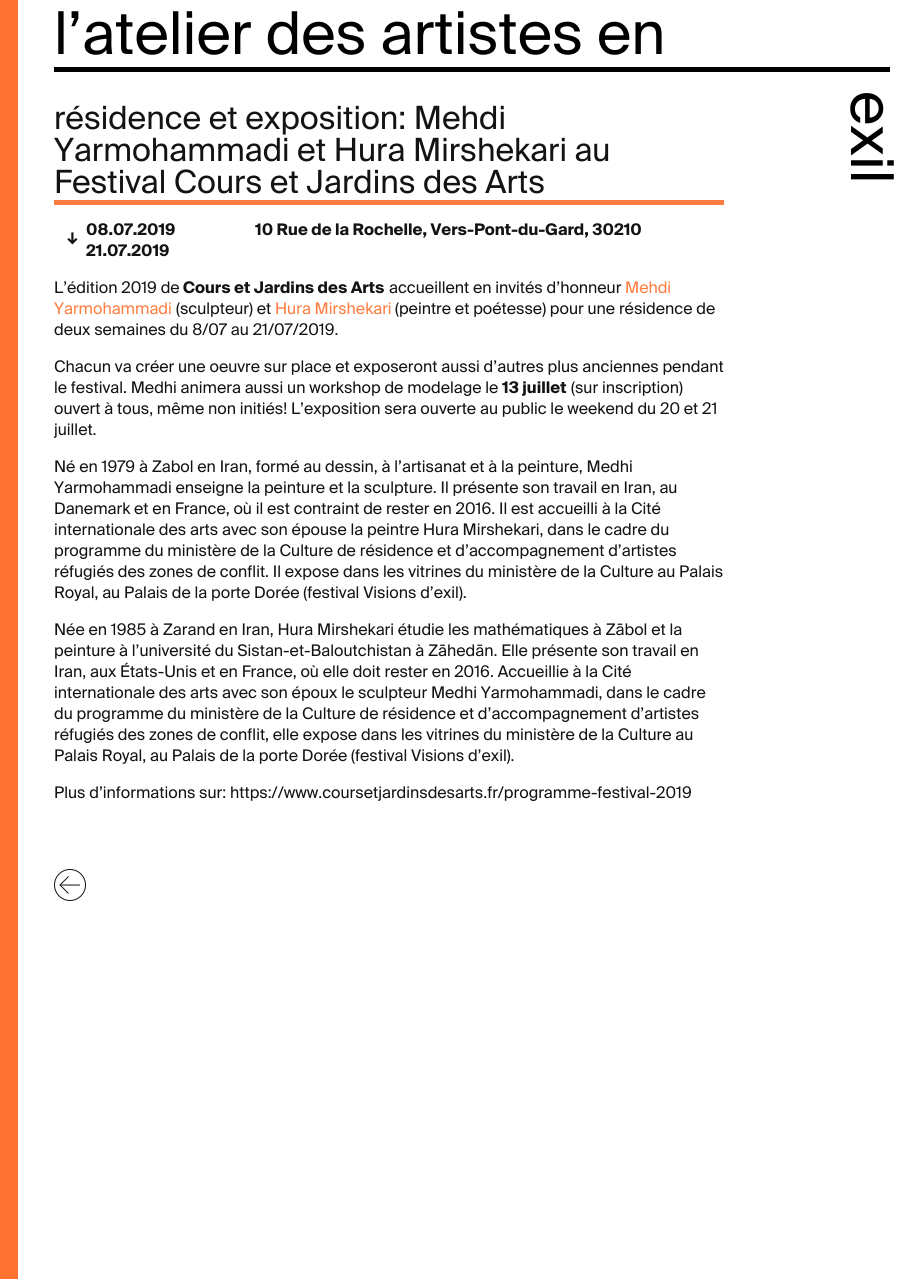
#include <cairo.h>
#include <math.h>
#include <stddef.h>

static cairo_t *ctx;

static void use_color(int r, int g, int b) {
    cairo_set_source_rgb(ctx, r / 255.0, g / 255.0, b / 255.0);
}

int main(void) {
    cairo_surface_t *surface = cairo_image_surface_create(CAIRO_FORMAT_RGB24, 908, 1279);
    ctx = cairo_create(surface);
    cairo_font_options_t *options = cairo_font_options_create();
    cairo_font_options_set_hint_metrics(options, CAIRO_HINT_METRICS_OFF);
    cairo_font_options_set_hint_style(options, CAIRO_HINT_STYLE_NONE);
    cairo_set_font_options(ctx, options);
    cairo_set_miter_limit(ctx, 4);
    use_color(255, 255, 255);
    cairo_paint(ctx);
    use_color(255, 115, 50);
    cairo_rectangle(ctx, 0, 0, 18, 1279);
    cairo_fill(ctx);
    use_color(0, 0, 0);
    cairo_rectangle(ctx, 54, 67, 836, 5);
    cairo_fill(ctx);
    cairo_select_font_face(ctx, "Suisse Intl", CAIRO_FONT_SLANT_NORMAL, CAIRO_FONT_WEIGHT_NORMAL);
    cairo_set_font_size(ctx, 59);
    cairo_move_to(ctx, 54, 54);
    cairo_show_text(ctx, "l’atelier des artistes en");
    use_color(255, 125, 65);
    cairo_rectangle(ctx, 54, 200, 670, 5);
    cairo_fill(ctx);
    cairo_set_font_size(ctx, 32);
    use_color(19, 19, 19);
    cairo_move_to(ctx, 54, 129);
    cairo_show_text(ctx, "résidence et exposition: Mehdi");
    cairo_move_to(ctx, 54, 161);
    cairo_show_text(ctx, "Yarmohammadi et Hura Mirshekari au");
    cairo_move_to(ctx, 54, 193);
    cairo_show_text(ctx, "Festival Cours et Jardins des Arts");
    cairo_select_font_face(ctx, "Suisse Intl", CAIRO_FONT_SLANT_NORMAL, CAIRO_FONT_WEIGHT_BOLD);
    cairo_set_font_size(ctx, 16);
    cairo_move_to(ctx, 86, 235);
    cairo_show_text(ctx, "08.07.2019");
    cairo_move_to(ctx, 66, 244);
    cairo_show_text(ctx, "↓");
    cairo_move_to(ctx, 86, 256);
    cairo_show_text(ctx, "21.07.2019");
    cairo_move_to(ctx, 255, 235);
    cairo_show_text(ctx, "10 Rue de la Rochelle, Vers-Pont-du-Gard, 30210");
    cairo_select_font_face(ctx, "Suisse Intl", CAIRO_FONT_SLANT_NORMAL, CAIRO_FONT_WEIGHT_NORMAL);
    cairo_move_to(ctx, 54, 293);
    cairo_show_text(ctx, "L’édition 2019 de");
    cairo_select_font_face(ctx, "Suisse Intl", CAIRO_FONT_SLANT_NORMAL, CAIRO_FONT_WEIGHT_BOLD);
    cairo_move_to(ctx, 183, 293);
    cairo_show_text(ctx, "Cours et Jardins des Arts");
    cairo_select_font_face(ctx, "Suisse Intl", CAIRO_FONT_SLANT_NORMAL, CAIRO_FONT_WEIGHT_NORMAL);
    cairo_move_to(ctx, 389, 293);
    cairo_show_text(ctx, "accueillent en invités d’honneur");
    use_color(255, 125, 65);
    cairo_move_to(ctx, 625, 293);
    cairo_show_text(ctx, "Mehdi");
    cairo_move_to(ctx, 54, 314);
    cairo_show_text(ctx, "Yarmohammadi");
    use_color(19, 19, 19);
    cairo_move_to(ctx, 176, 314);
    cairo_show_text(ctx, "(sculpteur) et");
    use_color(255, 125, 65);
    cairo_move_to(ctx, 275, 314);
    cairo_show_text(ctx, "Hura Mirshekari");
    use_color(19, 19, 19);
    cairo_move_to(ctx, 395, 314);
    cairo_show_text(ctx, "(peintre et poétesse) pour une résidence de");
    cairo_move_to(ctx, 54, 335);
    cairo_show_text(ctx, "deux semaines du 8/07 au 21/07/2019.");
    cairo_move_to(ctx, 54, 372);
    cairo_show_text(ctx, "Chacun va créer une oeuvre sur place et exposeront aussi d’autres plus anciennes pendant");
    cairo_move_to(ctx, 54, 393);
    cairo_show_text(ctx, "le festival. Medhi animera aussi un workshop de modelage le");
    cairo_select_font_face(ctx, "Suisse Intl", CAIRO_FONT_SLANT_NORMAL, CAIRO_FONT_WEIGHT_BOLD);
    cairo_move_to(ctx, 502, 393);
    cairo_show_text(ctx, "13 juillet");
    cairo_select_font_face(ctx, "Suisse Intl", CAIRO_FONT_SLANT_NORMAL, CAIRO_FONT_WEIGHT_NORMAL);
    cairo_move_to(ctx, 571, 393);
    cairo_show_text(ctx, "(sur inscription)");
    cairo_move_to(ctx, 54, 414);
    cairo_show_text(ctx, "ouvert à tous, même non initiés! L’exposition sera ouverte au public le weekend du 20 et 21");
    cairo_move_to(ctx, 54, 435);
    cairo_show_text(ctx, "juillet.");
    cairo_move_to(ctx, 54, 472);
    cairo_show_text(ctx, "Né en 1979 à Zabol en Iran, formé au dessin, à l’artisanat et à la peinture, Medhi");
    cairo_move_to(ctx, 54, 493);
    cairo_show_text(ctx, "Yarmohammadi enseigne la peinture et la sculpture. Il présente son travail en Iran, au");
    cairo_move_to(ctx, 54, 514);
    cairo_show_text(ctx, "Danemark et en France, où il est contraint de rester en 2016. Il est accueilli à la Cité");
    cairo_move_to(ctx, 54, 535);
    cairo_show_text(ctx, "internationale des arts avec son épouse la peintre Hura Mirshekari, dans le cadre du");
    cairo_move_to(ctx, 54, 556);
    cairo_show_text(ctx, "programme du ministère de la Culture de résidence et d’accompagnement d’artistes");
    cairo_move_to(ctx, 54, 577);
    cairo_show_text(ctx, "réfugiés des zones de conflit. Il expose dans les vitrines du ministère de la Culture au Palais");
    cairo_move_to(ctx, 54, 598);
    cairo_show_text(ctx, "Royal, au Palais de la porte Dorée (festival Visions d’exil).");
    cairo_move_to(ctx, 54, 635);
    cairo_show_text(ctx, "Née en 1985 à Zarand en Iran, Hura Mirshekari étudie les mathématiques à Zābol et la");
    cairo_move_to(ctx, 54, 656);
    cairo_show_text(ctx, "peinture à l’université du Sistan-et-Baloutchistan à Zāhedān. Elle présente son travail en");
    cairo_move_to(ctx, 54, 677);
    cairo_show_text(ctx, "Iran, aux États-Unis et en France, où elle doit rester en 2016. Accueillie à la Cité");
    cairo_move_to(ctx, 54, 698);
    cairo_show_text(ctx, "internationale des arts avec son époux le sculpteur Medhi Yarmohammadi, dans le cadre");
    cairo_move_to(ctx, 54, 719);
    cairo_show_text(ctx, "du programme du ministère de la Culture de résidence et d’accompagnement d’artistes");
    cairo_move_to(ctx, 54, 740);
    cairo_show_text(ctx, "réfugiés des zones de conflit, elle expose dans les vitrines du ministère de la Culture au");
    cairo_move_to(ctx, 54, 761);
    cairo_show_text(ctx, "Palais Royal, au Palais de la porte Dorée (festival Visions d’exil).");
    cairo_move_to(ctx, 54, 798);
    cairo_show_text(ctx, "Plus d’informations sur: https://www.coursetjardinsdesarts.fr/programme-festival-2019");
    cairo_new_path(ctx);
    cairo_arc(ctx, 70, 885, 15.5, 0, 2 * M_PI);
    cairo_set_line_width(ctx, 1);
    cairo_stroke(ctx);
    cairo_new_path(ctx);
    cairo_move_to(ctx, 68.5, 893.5);
    cairo_line_to(ctx, 60, 885);
    cairo_line_to(ctx, 68.5, 876.5);
    cairo_stroke(ctx);
    cairo_new_path(ctx);
    cairo_move_to(ctx, 60, 885);
    cairo_line_to(ctx, 80, 885);
    cairo_set_line_join(ctx, CAIRO_LINE_JOIN_ROUND);
    cairo_stroke(ctx);
    cairo_set_font_size(ctx, 59);
    use_color(0, 0, 0);
    cairo_save(ctx);
    cairo_translate(ctx, 851, 91);
    cairo_rotate(ctx, 90 * M_PI / 180);
    cairo_move_to(ctx, 0, 0);
    cairo_show_text(ctx, "exil");
    cairo_restore(ctx);
    cairo_surface_write_to_png(surface, "result.png");
    cairo_font_options_destroy(options);
    cairo_destroy(ctx);
    cairo_surface_destroy(surface);
    return 0;
}
